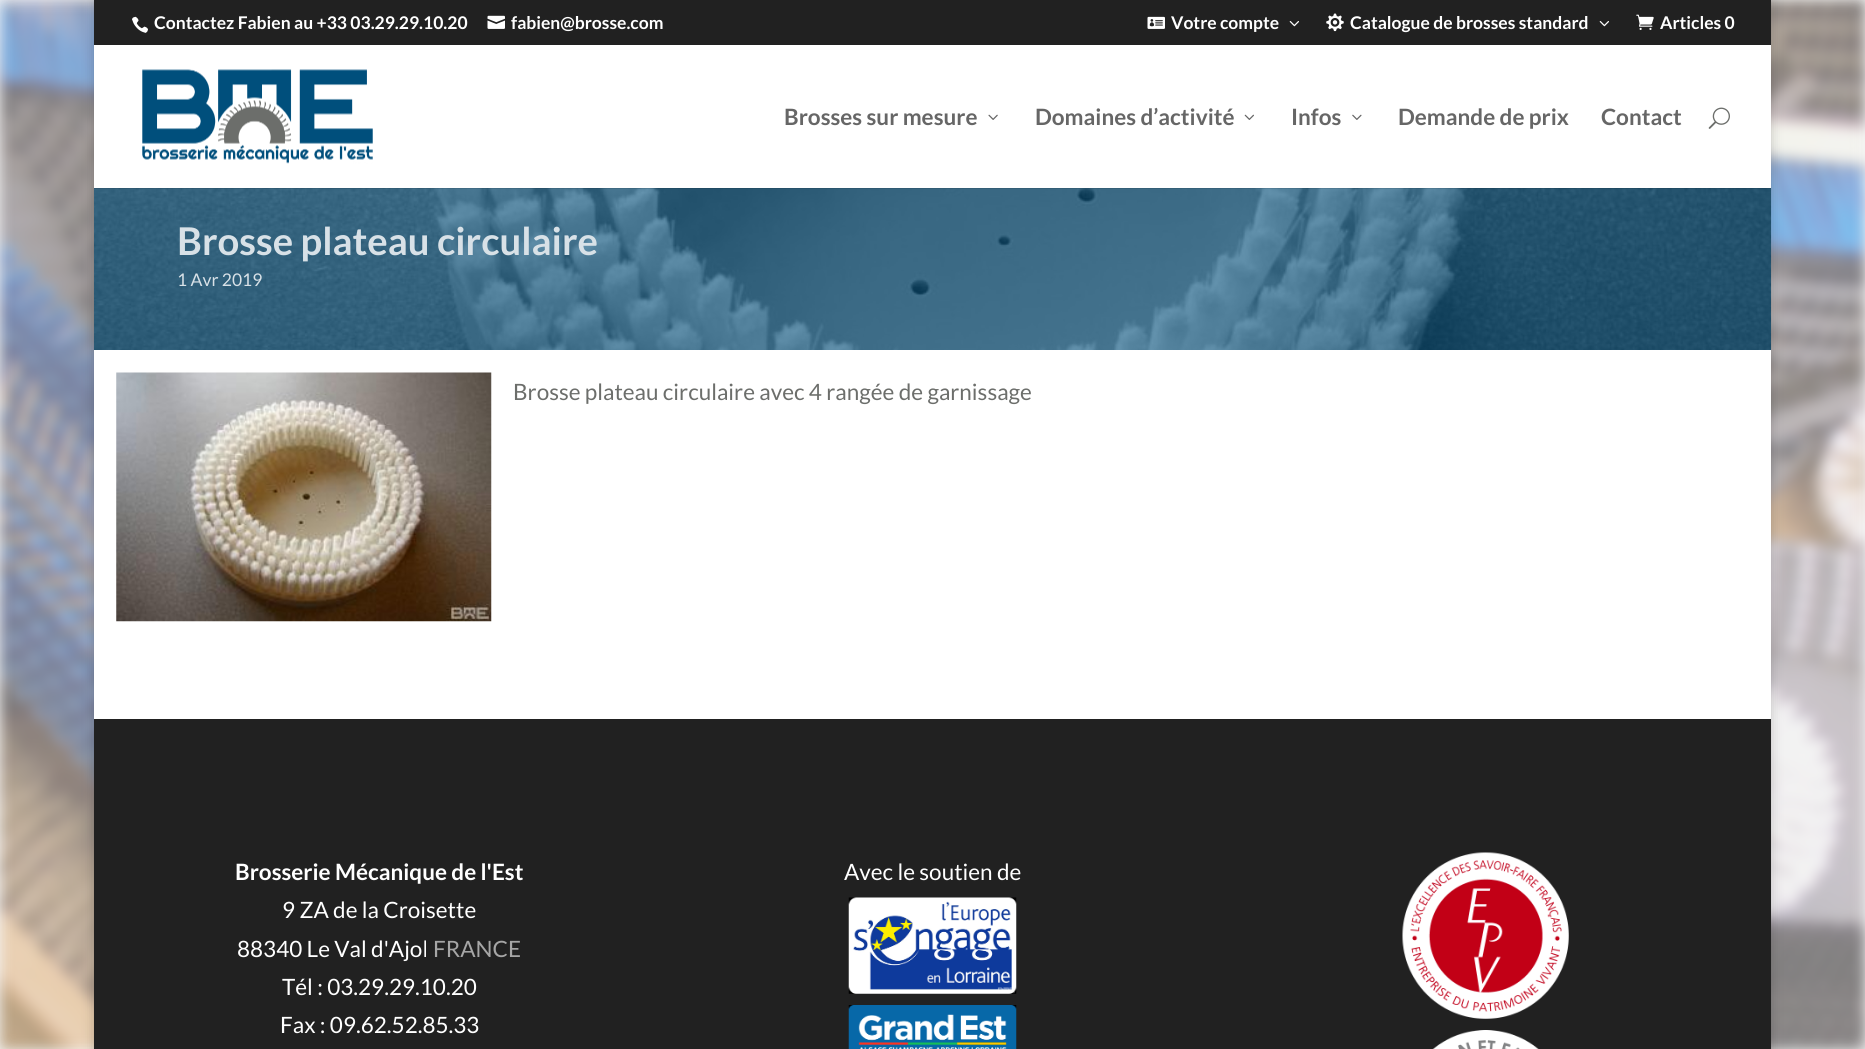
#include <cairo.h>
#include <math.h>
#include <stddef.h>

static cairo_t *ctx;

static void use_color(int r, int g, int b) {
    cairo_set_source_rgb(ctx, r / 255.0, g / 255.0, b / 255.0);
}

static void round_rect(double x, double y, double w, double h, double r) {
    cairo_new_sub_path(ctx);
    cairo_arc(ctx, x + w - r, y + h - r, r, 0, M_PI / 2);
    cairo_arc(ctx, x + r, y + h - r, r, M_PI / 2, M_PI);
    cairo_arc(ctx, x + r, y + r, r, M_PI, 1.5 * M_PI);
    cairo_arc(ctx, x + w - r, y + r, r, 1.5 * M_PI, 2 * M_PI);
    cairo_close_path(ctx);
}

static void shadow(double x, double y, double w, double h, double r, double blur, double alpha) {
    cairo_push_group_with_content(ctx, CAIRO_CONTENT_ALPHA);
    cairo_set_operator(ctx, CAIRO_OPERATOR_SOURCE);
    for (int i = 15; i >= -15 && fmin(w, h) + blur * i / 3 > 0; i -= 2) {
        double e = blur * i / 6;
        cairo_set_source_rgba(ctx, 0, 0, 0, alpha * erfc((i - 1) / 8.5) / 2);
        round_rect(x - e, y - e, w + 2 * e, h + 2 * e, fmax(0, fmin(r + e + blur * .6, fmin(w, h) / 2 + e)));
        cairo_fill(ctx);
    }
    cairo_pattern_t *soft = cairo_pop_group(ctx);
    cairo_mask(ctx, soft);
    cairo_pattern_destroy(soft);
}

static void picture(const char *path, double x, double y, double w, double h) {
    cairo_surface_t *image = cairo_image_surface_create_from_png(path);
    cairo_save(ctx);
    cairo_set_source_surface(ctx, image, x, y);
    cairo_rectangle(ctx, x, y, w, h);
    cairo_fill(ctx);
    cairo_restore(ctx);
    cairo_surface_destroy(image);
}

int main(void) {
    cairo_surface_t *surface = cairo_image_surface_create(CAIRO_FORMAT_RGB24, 1865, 1049);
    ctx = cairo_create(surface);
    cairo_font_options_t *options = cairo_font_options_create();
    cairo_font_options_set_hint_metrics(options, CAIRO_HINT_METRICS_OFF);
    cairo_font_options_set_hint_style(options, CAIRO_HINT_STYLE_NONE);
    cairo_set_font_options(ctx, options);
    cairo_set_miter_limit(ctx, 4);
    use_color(243, 243, 243);
    cairo_paint(ctx);
    picture("img1.png", 0, 0, 1865, 1049);
    use_color(0, 0, 0);
    shadow(94, 0, 1677, 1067, 0, 6, 0.2);
    use_color(33, 33, 33);
    cairo_rectangle(ctx, 94, 0, 1677, 1049);
    cairo_fill(ctx);
    picture("img2.png", 132, 16, 16, 17);
    cairo_select_font_face(ctx, "Lato", CAIRO_FONT_SLANT_NORMAL, CAIRO_FONT_WEIGHT_BOLD);
    cairo_set_font_size(ctx, 17.5);
    use_color(255, 255, 255);
    cairo_move_to(ctx, 154, 29);
    cairo_show_text(ctx, "Contactez Fabien au +33 03.29.29.10.20");
    picture("img3.png", 487, 15, 18, 14);
    cairo_move_to(ctx, 511, 29);
    cairo_show_text(ctx, "fabien@brosse.com");
    picture("img4.png", 1147, 16, 18, 13);
    cairo_move_to(ctx, 1171, 29);
    cairo_show_text(ctx, "Votre compte");
    picture("img5.png", 1289, 21, 10, 6);
    picture("img6.png", 1326, 13, 18, 19);
    cairo_move_to(ctx, 1350, 29);
    cairo_show_text(ctx, "Catalogue de brosses standard");
    picture("img5.png", 1599, 21, 10, 6);
    picture("img7.png", 1636, 14, 18, 16);
    cairo_move_to(ctx, 1660, 29);
    cairo_show_text(ctx, "Articles 0");
    use_color(0, 79, 124);
    cairo_rectangle(ctx, 94, 188, 1677, 162);
    cairo_fill(ctx);
    picture("img13.png", 94, 173, 1678, 177);
    cairo_set_source_rgba(ctx, 0, 0, 0, 0.1);
    cairo_rectangle(ctx, 94, 188, 1677, 1);
    cairo_fill(ctx);
    use_color(255, 255, 255);
    cairo_rectangle(ctx, 94, 45, 1677, 143);
    cairo_fill(ctx);
    picture("img8.png", 142, 69, 231, 95);
    cairo_set_font_size(ctx, 22.5);
    use_color(102, 102, 102);
    cairo_move_to(ctx, 784, 125);
    cairo_show_text(ctx, "Brosses sur mesure");
    picture("img9.png", 988, 114, 10, 6);
    cairo_move_to(ctx, 1035, 125);
    cairo_show_text(ctx, "Domaines d’activité");
    picture("img10.png", 1244, 114, 10, 6);
    cairo_move_to(ctx, 1291, 125);
    cairo_show_text(ctx, "Infos");
    picture("img11.png", 1352, 114, 10, 6);
    cairo_move_to(ctx, 1398, 125);
    cairo_show_text(ctx, "Demande de prix");
    cairo_move_to(ctx, 1601, 125);
    cairo_show_text(ctx, "Contact");
    picture("img12.png", 1708, 107, 22, 22);
    use_color(255, 255, 255);
    cairo_rectangle(ctx, 94, 350, 1677, 369);
    cairo_fill(ctx);
    cairo_set_font_size(ctx, 38.25);
    use_color(216, 225, 231);
    cairo_move_to(ctx, 177, 255);
    cairo_show_text(ctx, "Brosse plateau circulaire");
    cairo_select_font_face(ctx, "Lato", CAIRO_FONT_SLANT_NORMAL, CAIRO_FONT_WEIGHT_NORMAL);
    cairo_set_font_size(ctx, 17.5);
    cairo_move_to(ctx, 177, 286);
    cairo_show_text(ctx, "1 Avr 2019");
    picture("img14.png", 116, 372, 376, 250);
    cairo_set_font_size(ctx, 22.5);
    use_color(108, 110, 107);
    cairo_move_to(ctx, 513, 400);
    cairo_show_text(ctx, "Brosse plateau circulaire avec 4 rangée de garnissage");
    cairo_select_font_face(ctx, "Lato", CAIRO_FONT_SLANT_NORMAL, CAIRO_FONT_WEIGHT_BOLD);
    use_color(255, 255, 255);
    cairo_move_to(ctx, 235, 880);
    cairo_show_text(ctx, "Brosserie Mécanique de l'Est");
    cairo_select_font_face(ctx, "Lato", CAIRO_FONT_SLANT_NORMAL, CAIRO_FONT_WEIGHT_NORMAL);
    cairo_move_to(ctx, 282, 918);
    cairo_show_text(ctx, "9 ZA de la Croisette");
    cairo_move_to(ctx, 237, 957);
    cairo_show_text(ctx, "88340 Le Val d'Ajol");
    use_color(166, 166, 166);
    cairo_move_to(ctx, 433, 957);
    cairo_show_text(ctx, "FRANCE");
    use_color(255, 255, 255);
    cairo_move_to(ctx, 282, 995);
    cairo_show_text(ctx, "Tél : 03.29.29.10.20");
    cairo_move_to(ctx, 280, 1033);
    cairo_show_text(ctx, "Fax : 09.62.52.85.33");
    cairo_move_to(ctx, 844, 880);
    cairo_show_text(ctx, "Avec le soutien de");
    picture("img15.png", 848, 897, 169, 97);
    picture("img16.png", 848, 1005, 169, 44);
    picture("img17.png", 1402, 852, 167, 167);
    picture("img18.png", 1432, 1030, 107, 19);
    cairo_surface_write_to_png(surface, "result.png");
    cairo_font_options_destroy(options);
    cairo_destroy(ctx);
    cairo_surface_destroy(surface);
    return 0;
}
